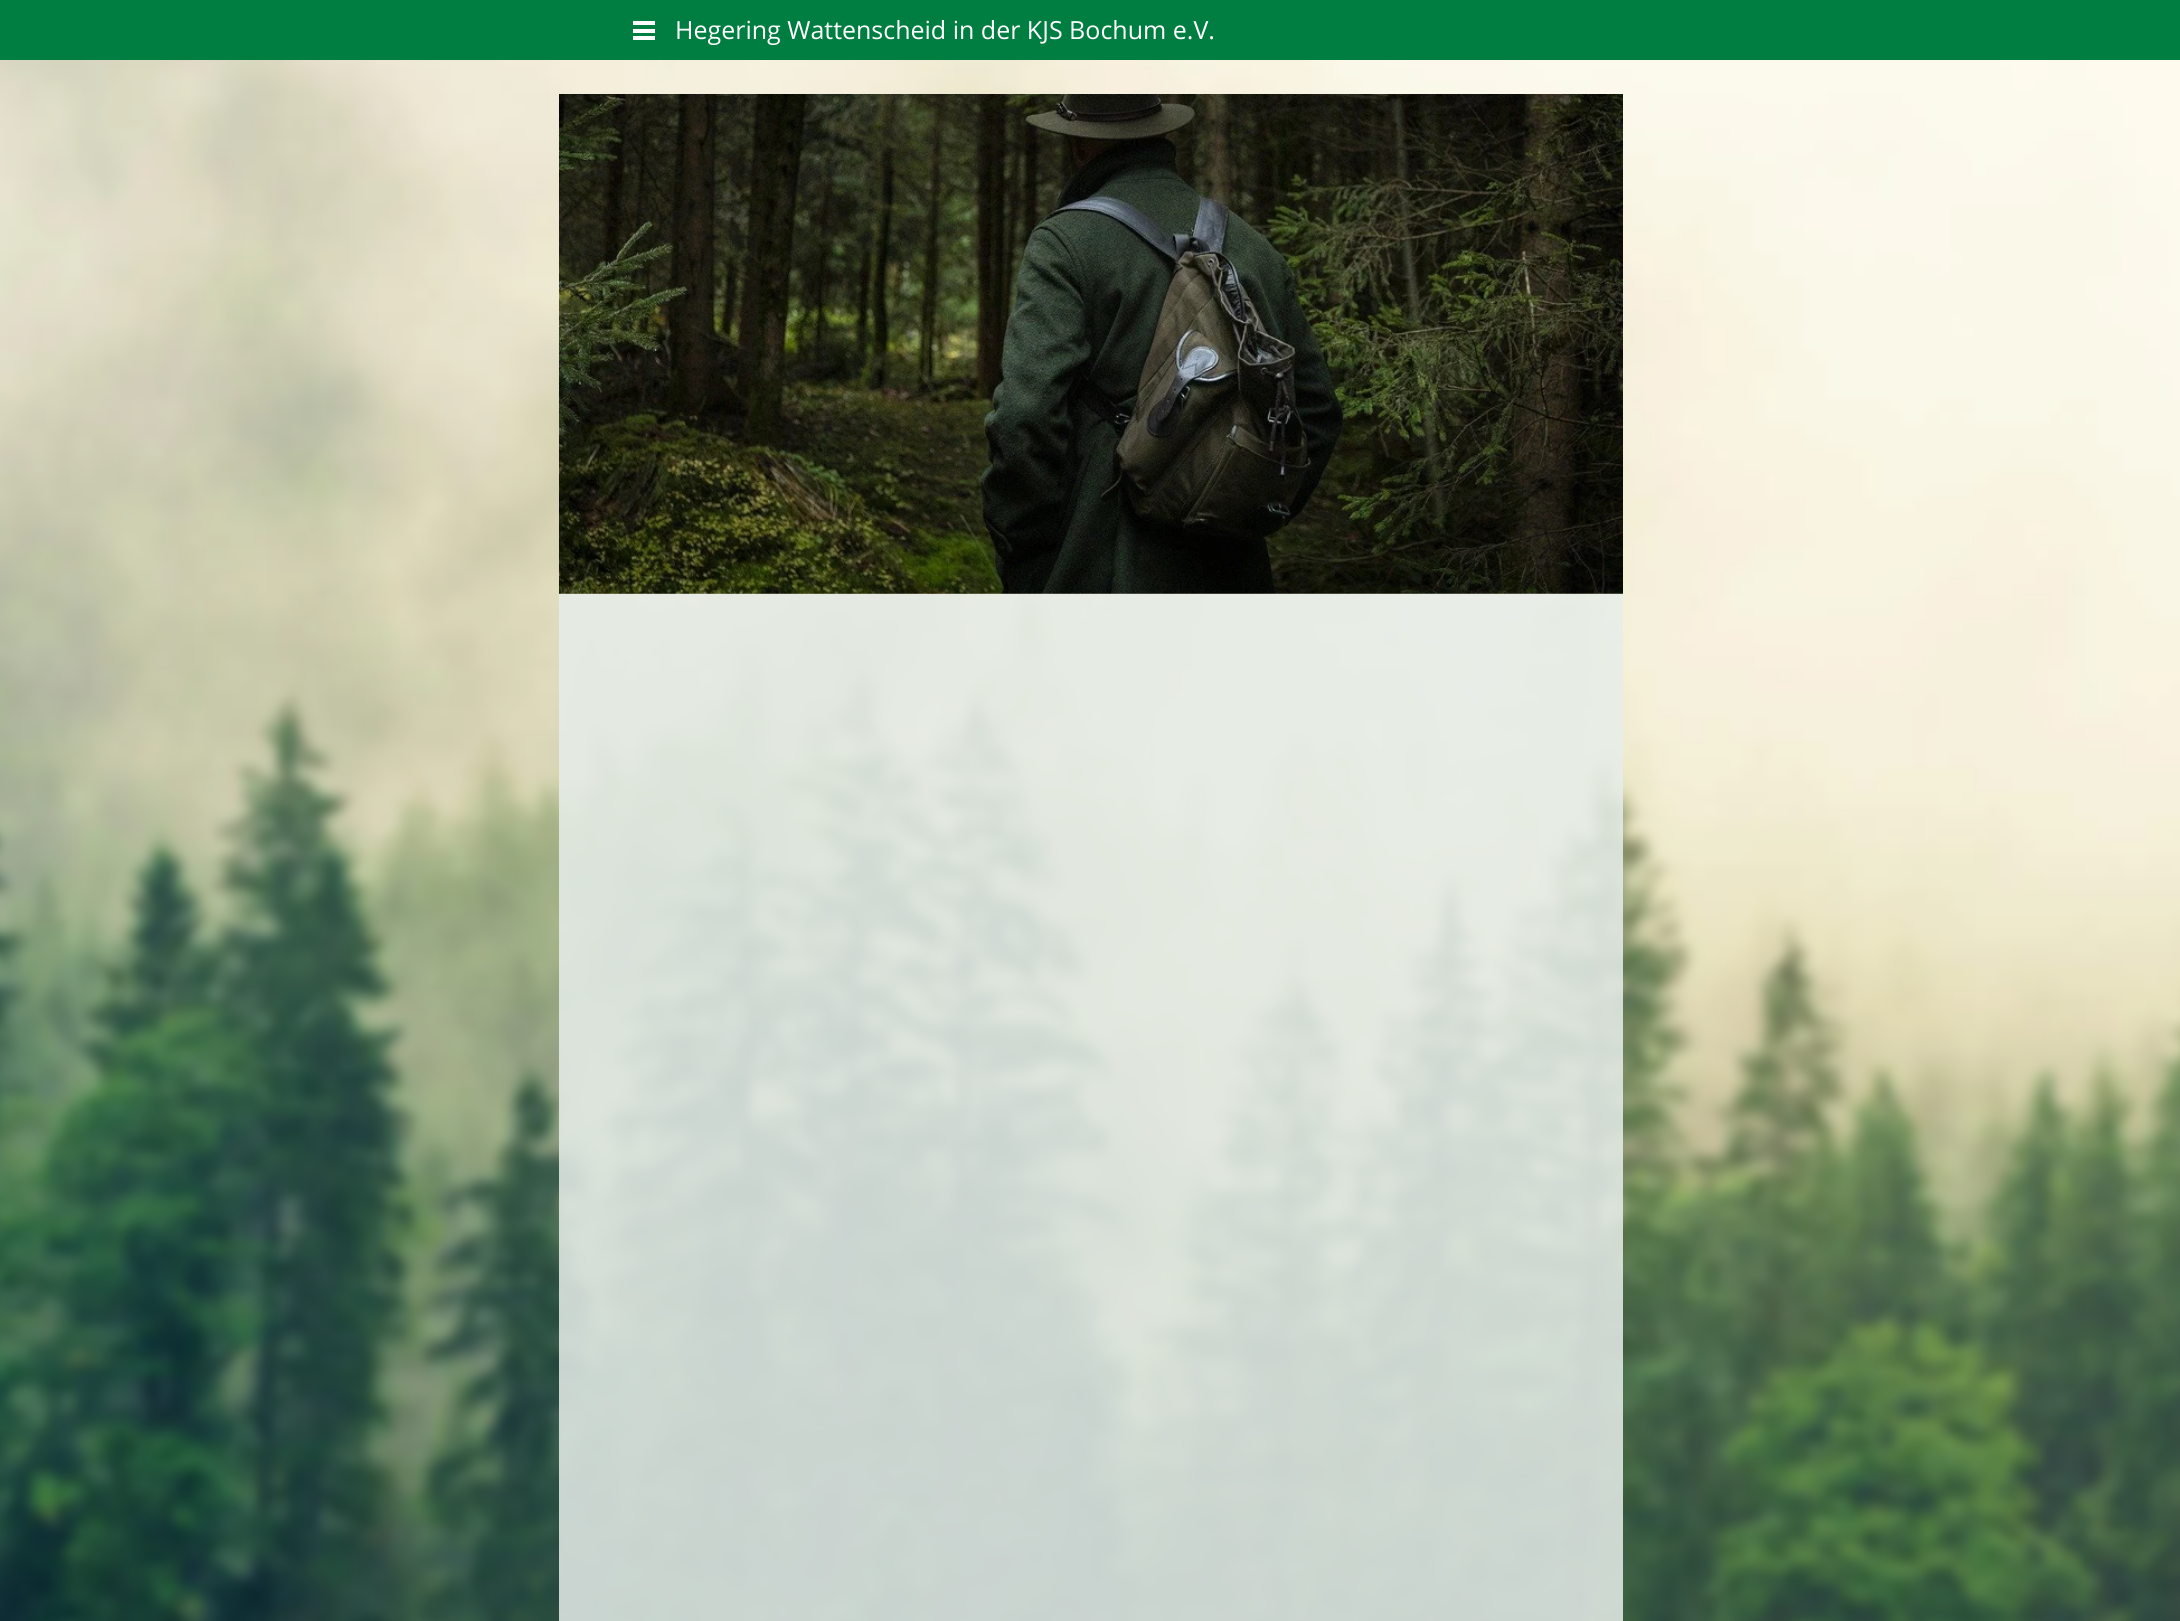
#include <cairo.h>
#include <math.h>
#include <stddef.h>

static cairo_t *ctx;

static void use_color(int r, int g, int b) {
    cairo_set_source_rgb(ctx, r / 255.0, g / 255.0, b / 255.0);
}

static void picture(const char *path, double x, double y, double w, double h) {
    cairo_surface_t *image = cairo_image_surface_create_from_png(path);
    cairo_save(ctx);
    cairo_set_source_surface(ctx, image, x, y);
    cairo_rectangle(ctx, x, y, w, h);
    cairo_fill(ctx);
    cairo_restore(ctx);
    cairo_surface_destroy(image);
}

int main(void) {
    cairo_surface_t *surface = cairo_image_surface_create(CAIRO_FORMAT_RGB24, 2180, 1621);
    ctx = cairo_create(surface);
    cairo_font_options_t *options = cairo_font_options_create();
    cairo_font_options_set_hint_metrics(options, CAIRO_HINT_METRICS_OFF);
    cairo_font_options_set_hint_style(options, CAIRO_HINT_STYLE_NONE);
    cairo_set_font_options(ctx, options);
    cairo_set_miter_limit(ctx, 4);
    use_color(255, 255, 255);
    cairo_paint(ctx);
    use_color(0, 125, 64);
    cairo_rectangle(ctx, 0, 0, 2180, 60);
    cairo_fill(ctx);
    use_color(255, 255, 255);
    cairo_rectangle(ctx, 633, 21, 22, 4);
    cairo_fill(ctx);
    cairo_rectangle(ctx, 633, 29, 22, 4);
    cairo_fill(ctx);
    cairo_rectangle(ctx, 633, 36, 22, 4);
    cairo_fill(ctx);
    cairo_select_font_face(ctx, "Open Sans", CAIRO_FONT_SLANT_NORMAL, CAIRO_FONT_WEIGHT_NORMAL);
    cairo_set_font_size(ctx, 25);
    cairo_move_to(ctx, 675, 39);
    cairo_show_text(ctx, "Hegering Wattenscheid in der KJS Bochum e.V.");
    picture("img2.png", 0, 60, 2180, 1561);
    picture("img1.png", 559, 94, 1064, 500);
    cairo_set_source_rgba(ctx, 0.902, 0.929, 0.918, 0.85);
    cairo_rectangle(ctx, 559, 594, 1064, 1027);
    cairo_fill(ctx);
    cairo_surface_write_to_png(surface, "result.png");
    cairo_font_options_destroy(options);
    cairo_destroy(ctx);
    cairo_surface_destroy(surface);
    return 0;
}
